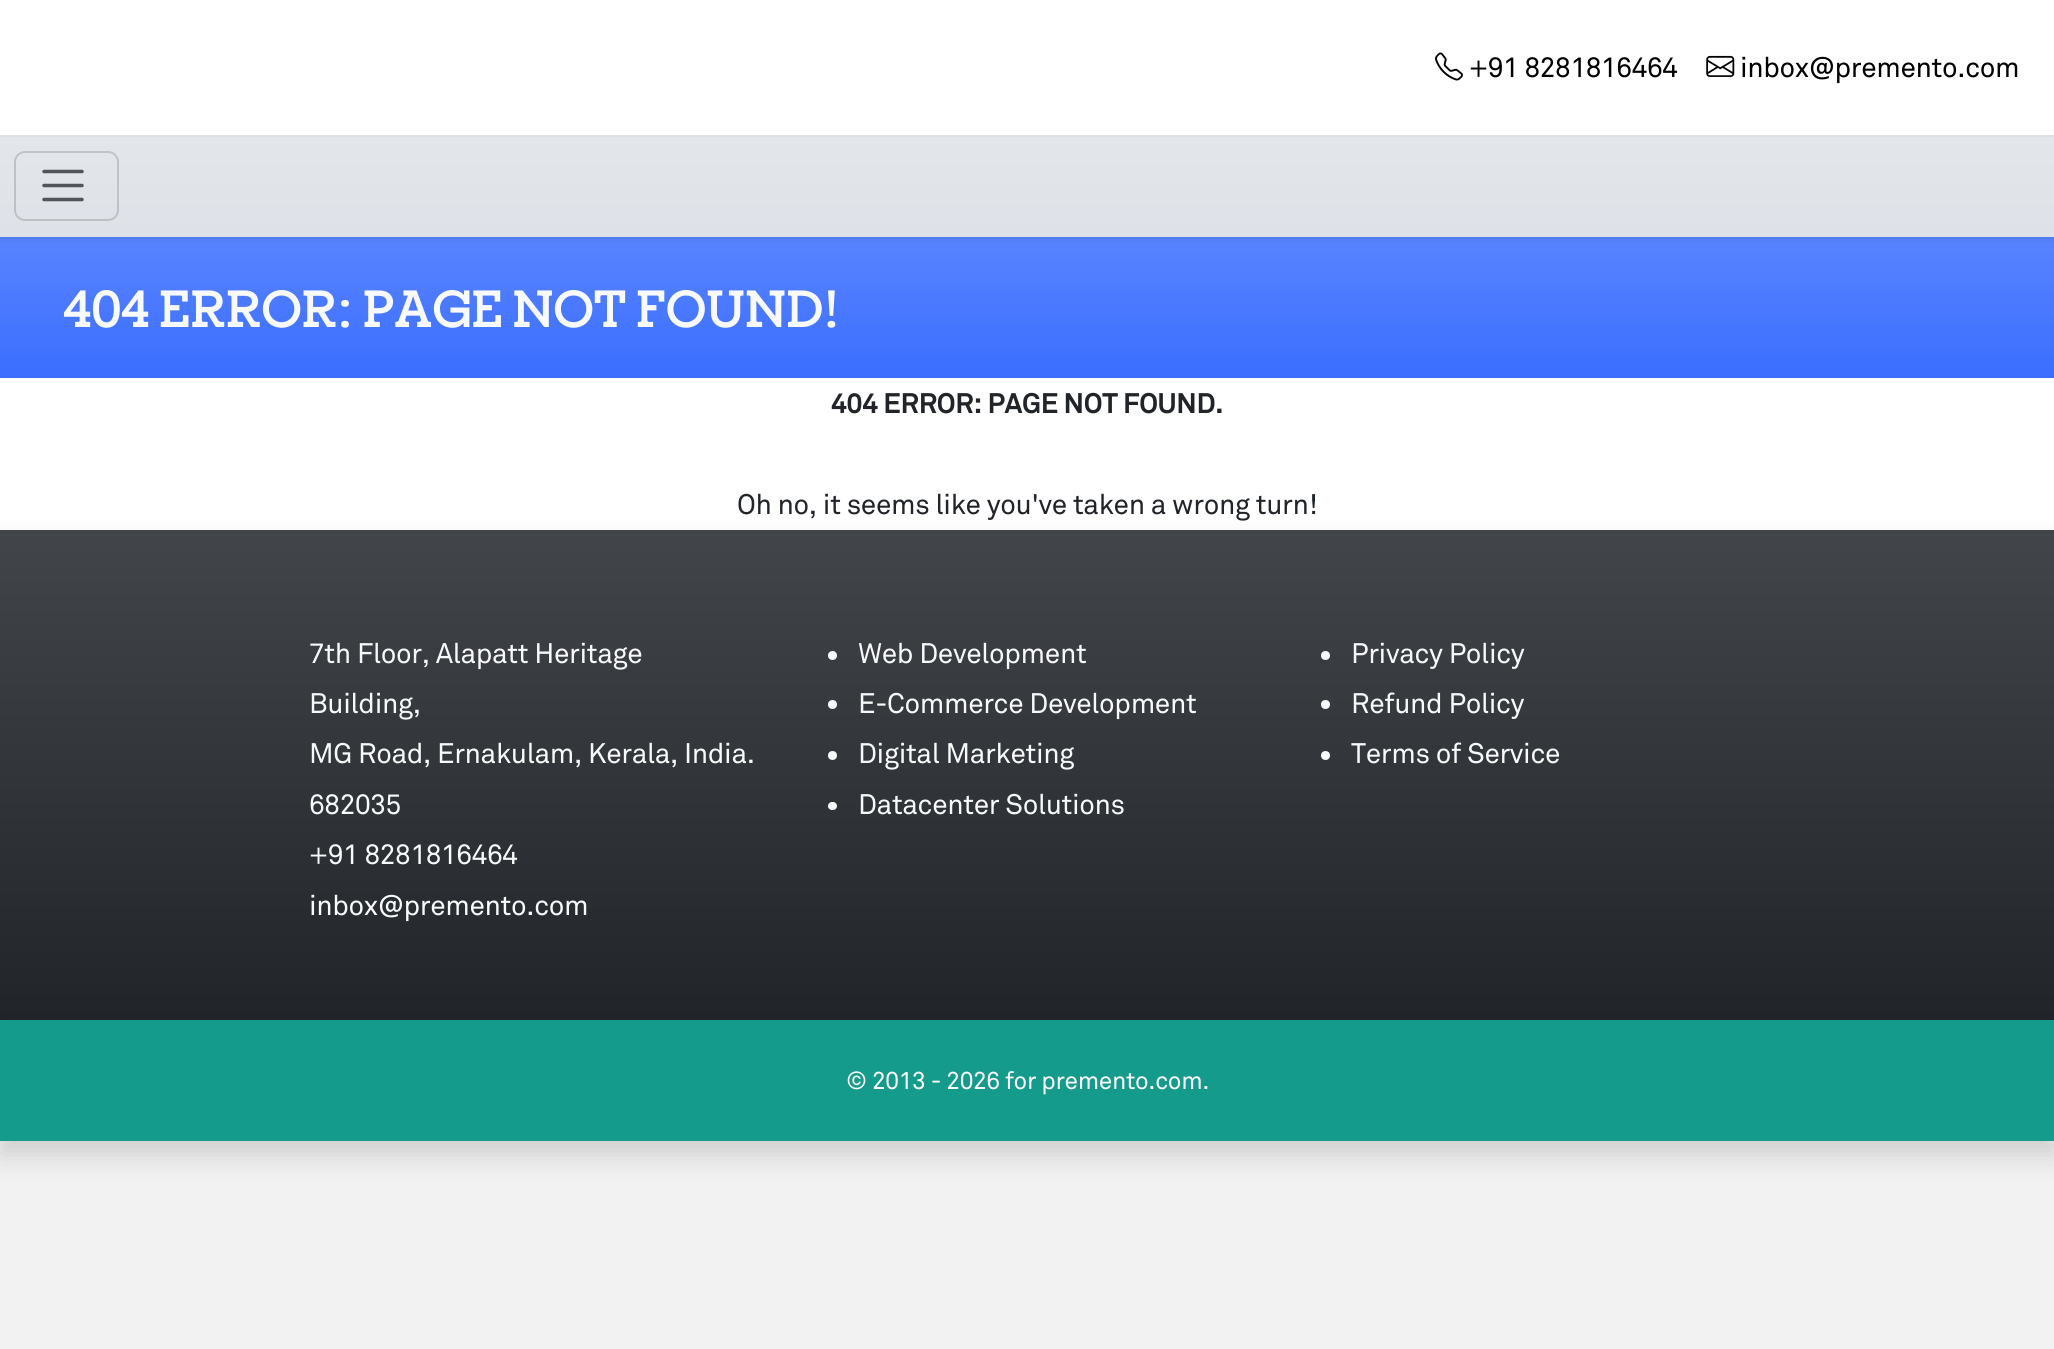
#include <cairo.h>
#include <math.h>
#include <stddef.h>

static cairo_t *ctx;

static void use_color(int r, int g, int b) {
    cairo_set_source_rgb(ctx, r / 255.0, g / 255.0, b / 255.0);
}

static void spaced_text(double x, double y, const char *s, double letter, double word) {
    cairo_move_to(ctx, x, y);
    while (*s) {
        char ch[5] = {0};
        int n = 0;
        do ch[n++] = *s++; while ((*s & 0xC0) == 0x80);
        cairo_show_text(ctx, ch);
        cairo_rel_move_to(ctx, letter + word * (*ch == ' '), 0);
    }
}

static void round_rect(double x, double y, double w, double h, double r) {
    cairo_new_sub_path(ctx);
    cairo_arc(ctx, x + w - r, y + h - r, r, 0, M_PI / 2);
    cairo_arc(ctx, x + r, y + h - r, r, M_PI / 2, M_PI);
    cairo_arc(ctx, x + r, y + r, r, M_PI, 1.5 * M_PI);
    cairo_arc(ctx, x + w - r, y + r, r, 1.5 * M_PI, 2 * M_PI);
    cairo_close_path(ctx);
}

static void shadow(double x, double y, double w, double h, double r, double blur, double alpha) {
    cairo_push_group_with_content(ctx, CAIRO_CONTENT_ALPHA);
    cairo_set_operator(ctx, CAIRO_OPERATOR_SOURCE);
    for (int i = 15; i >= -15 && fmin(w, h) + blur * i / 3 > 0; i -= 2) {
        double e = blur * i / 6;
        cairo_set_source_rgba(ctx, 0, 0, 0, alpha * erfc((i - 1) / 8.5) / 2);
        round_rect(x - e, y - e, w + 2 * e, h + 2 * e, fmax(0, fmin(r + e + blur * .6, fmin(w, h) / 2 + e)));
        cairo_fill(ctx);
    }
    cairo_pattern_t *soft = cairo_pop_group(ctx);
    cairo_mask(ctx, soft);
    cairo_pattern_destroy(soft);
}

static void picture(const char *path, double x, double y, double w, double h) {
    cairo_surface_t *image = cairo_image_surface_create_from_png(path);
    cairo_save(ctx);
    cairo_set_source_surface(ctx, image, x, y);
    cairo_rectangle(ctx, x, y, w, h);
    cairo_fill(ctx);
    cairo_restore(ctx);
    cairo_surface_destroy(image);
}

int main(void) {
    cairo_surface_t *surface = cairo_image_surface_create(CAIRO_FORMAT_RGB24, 2054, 1349);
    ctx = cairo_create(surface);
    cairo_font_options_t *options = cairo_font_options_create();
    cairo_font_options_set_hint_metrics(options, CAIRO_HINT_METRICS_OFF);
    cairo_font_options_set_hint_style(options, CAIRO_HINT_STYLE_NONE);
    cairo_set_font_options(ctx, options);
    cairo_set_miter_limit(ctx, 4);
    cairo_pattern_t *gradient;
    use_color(242, 242, 242);
    cairo_paint(ctx);
    use_color(255, 255, 255);
    cairo_rectangle(ctx, 0, 0, 2054, 135);
    cairo_fill(ctx);
    use_color(222, 226, 230);
    cairo_rectangle(ctx, 0, 135, 2054, 2);
    cairo_fill(ctx);
    picture("img1.png", 1435, 52, 28, 29);
    cairo_select_font_face(ctx, "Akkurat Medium", CAIRO_FONT_SLANT_NORMAL, CAIRO_FONT_WEIGHT_NORMAL);
    cairo_set_font_size(ctx, 28);
    use_color(0, 0, 0);
    spaced_text(1469, 77, "+91 8281816464", -0.35, 0);
    picture("img2.png", 1706, 55, 29, 22);
    spaced_text(1740, 77, "inbox@premento.com", -0.35, 0);
    gradient = cairo_pattern_create_linear(1027, 236, 1027, 378);
    cairo_pattern_add_color_stop_rgba(gradient, 0, 0.345, 0.518, 1, 1);
    cairo_pattern_add_color_stop_rgba(gradient, 1, 0.231, 0.431, 1, 1);
    cairo_set_source(ctx, gradient);
    cairo_pattern_destroy(gradient);
    cairo_rectangle(ctx, 0, 237, 2054, 141);
    cairo_fill(ctx);
    use_color(0, 0, 0);
    shadow(0, 140, 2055, 100, 0, 3.5, 0.07);
    gradient = cairo_pattern_create_linear(1027, 136, 1027, 235);
    cairo_pattern_add_color_stop_rgba(gradient, 0, 0.89, 0.902, 0.918, 1);
    cairo_pattern_add_color_stop_rgba(gradient, 1, 0.871, 0.882, 0.906, 1);
    cairo_set_source(ctx, gradient);
    cairo_pattern_destroy(gradient);
    cairo_rectangle(ctx, 0, 137, 2054, 98);
    cairo_fill(ctx);
    use_color(222, 226, 230);
    cairo_rectangle(ctx, 0, 235, 2054, 2);
    cairo_fill(ctx);
    round_rect(15, 152, 103, 68, 10);
    cairo_set_source_rgba(ctx, 0, 0, 0, 0.15);
    cairo_stroke(ctx);
    cairo_new_path(ctx);
    cairo_move_to(ctx, 44, 171.5);
    cairo_line_to(ctx, 82, 171.5);
    cairo_move_to(ctx, 44, 185.5);
    cairo_line_to(ctx, 82, 185.5);
    cairo_move_to(ctx, 44, 199.5);
    cairo_line_to(ctx, 82, 199.5);
    use_color(81, 85, 89);
    cairo_set_line_width(ctx, 3.5);
    cairo_set_line_cap(ctx, CAIRO_LINE_CAP_ROUND);
    cairo_stroke(ctx);
    use_color(255, 255, 255);
    cairo_rectangle(ctx, 0, 378, 2054, 152);
    cairo_fill(ctx);
    cairo_select_font_face(ctx, "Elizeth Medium", CAIRO_FONT_SLANT_NORMAL, CAIRO_FONT_WEIGHT_NORMAL);
    cairo_set_font_size(ctx, 48.75);
    use_color(248, 249, 250);
    spaced_text(63, 327, "404 ERROR: PAGE NOT FOUND!", -0.35, 0);
    cairo_select_font_face(ctx, "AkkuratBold", CAIRO_FONT_SLANT_NORMAL, CAIRO_FONT_WEIGHT_BOLD);
    cairo_set_font_size(ctx, 28);
    use_color(33, 37, 41);
    spaced_text(831, 413, "404 ERROR: PAGE NOT FOUND.", -0.35, 0);
    use_color(0, 0, 0);
    shadow(0, 544, 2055, 490, 0, 14, 0.15);
    cairo_select_font_face(ctx, "Akkurat Medium", CAIRO_FONT_SLANT_NORMAL, CAIRO_FONT_WEIGHT_NORMAL);
    use_color(33, 37, 41);
    spaced_text(737, 514, "Oh no, it seems like you've taken a wrong turn!", -0.35, 0);
    gradient = cairo_pattern_create_linear(1027, 530, 1027, 1020);
    cairo_pattern_add_color_stop_rgba(gradient, 0, 0.259, 0.271, 0.286, 1);
    cairo_pattern_add_color_stop_rgba(gradient, 1, 0.129, 0.141, 0.157, 1);
    cairo_set_source(ctx, gradient);
    cairo_pattern_destroy(gradient);
    cairo_rectangle(ctx, 0, 530, 2054, 490);
    cairo_fill(ctx);
    use_color(248, 249, 250);
    spaced_text(309, 663, "7th Floor, Alapatt Heritage", -0.35, 0);
    spaced_text(309, 713, "Building,", -0.35, 0);
    spaced_text(309, 763, "MG Road, Ernakulam, Kerala, India.", -0.35, 0);
    spaced_text(309, 814, "682035", -0.35, 0);
    spaced_text(309, 864, "+91 8281816464", -0.35, 0);
    spaced_text(309, 915, "inbox@premento.com", -0.35, 0);
    cairo_new_path(ctx);
    cairo_arc(ctx, 832.5, 655.5, 4.5, 0, 2 * M_PI);
    cairo_fill(ctx);
    spaced_text(858, 663, "Web Development", -0.35, 0);
    cairo_new_path(ctx);
    cairo_arc(ctx, 832.5, 704.5, 4.5, 0, 2 * M_PI);
    cairo_fill(ctx);
    spaced_text(858, 713, "E-Commerce Development", -0.35, 0);
    cairo_new_path(ctx);
    cairo_arc(ctx, 832.5, 755.5, 4.5, 0, 2 * M_PI);
    cairo_fill(ctx);
    spaced_text(858, 763, "Digital Marketing", -0.35, 0);
    round_rect(828, 802, 9, 8, 4);
    cairo_fill(ctx);
    spaced_text(858, 814, "Datacenter Solutions", -0.35, 0);
    cairo_new_path(ctx);
    cairo_arc(ctx, 1325.5, 655.5, 4.5, 0, 2 * M_PI);
    cairo_fill(ctx);
    spaced_text(1351, 663, "Privacy Policy", -0.35, 0);
    cairo_new_path(ctx);
    cairo_arc(ctx, 1325.5, 704.5, 4.5, 0, 2 * M_PI);
    cairo_fill(ctx);
    spaced_text(1351, 713, "Refund Policy", -0.35, 0);
    cairo_new_path(ctx);
    cairo_arc(ctx, 1325.5, 755.5, 4.5, 0, 2 * M_PI);
    cairo_fill(ctx);
    spaced_text(1351, 763, "Terms of Service", -0.35, 0);
    use_color(0, 0, 0);
    shadow(0, 1034, 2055, 121, 0, 14, 0.15);
    use_color(21, 155, 139);
    cairo_rectangle(ctx, 0, 1020, 2054, 121);
    cairo_fill(ctx);
    cairo_set_font_size(ctx, 24.5);
    use_color(248, 249, 250);
    spaced_text(846, 1089, "© 2013 - 2026 for premento.com.", -0.35, 0);
    cairo_surface_write_to_png(surface, "result.png");
    cairo_font_options_destroy(options);
    cairo_destroy(ctx);
    cairo_surface_destroy(surface);
    return 0;
}
